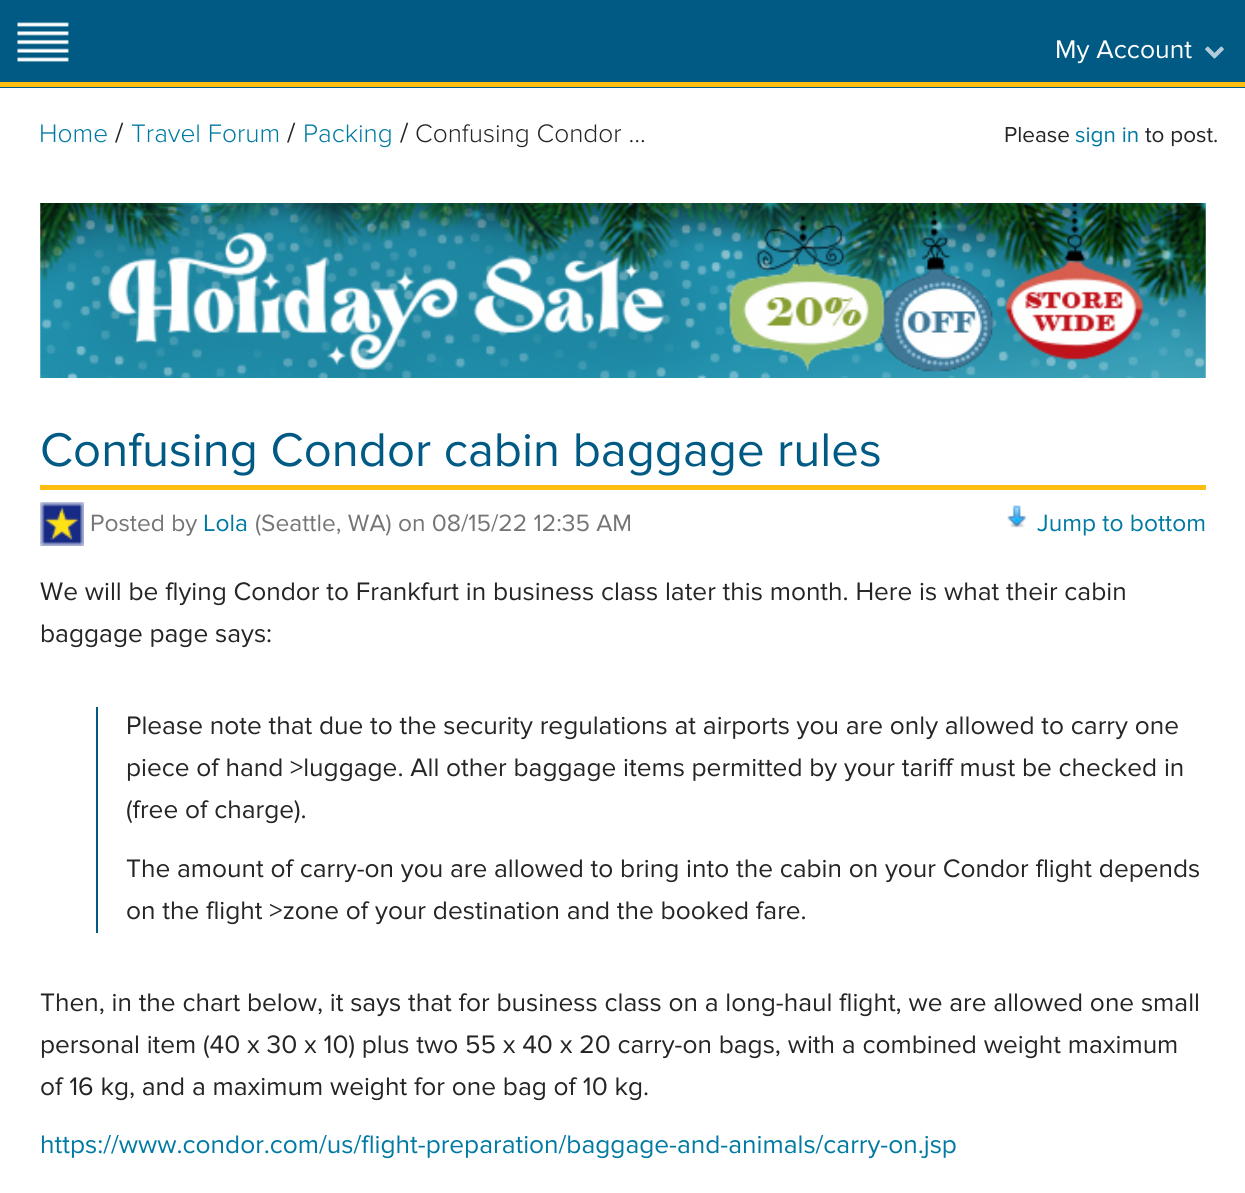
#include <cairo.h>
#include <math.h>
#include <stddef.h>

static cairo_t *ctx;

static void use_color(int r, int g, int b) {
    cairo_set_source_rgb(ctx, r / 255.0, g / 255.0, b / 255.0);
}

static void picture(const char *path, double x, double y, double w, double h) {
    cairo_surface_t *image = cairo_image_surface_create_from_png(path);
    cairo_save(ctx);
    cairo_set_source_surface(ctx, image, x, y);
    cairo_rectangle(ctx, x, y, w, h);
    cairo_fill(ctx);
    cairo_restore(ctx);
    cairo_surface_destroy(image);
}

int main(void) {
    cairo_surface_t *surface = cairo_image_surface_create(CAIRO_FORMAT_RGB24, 1245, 1193);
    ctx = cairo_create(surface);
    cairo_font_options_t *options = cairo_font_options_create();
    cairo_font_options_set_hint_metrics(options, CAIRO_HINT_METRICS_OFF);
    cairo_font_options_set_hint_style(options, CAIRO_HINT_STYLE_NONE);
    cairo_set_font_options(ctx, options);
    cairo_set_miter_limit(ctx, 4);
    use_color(255, 255, 255);
    cairo_paint(ctx);
    use_color(0, 90, 132);
    cairo_rectangle(ctx, 0, 0, 1245, 88);
    cairo_fill(ctx);
    use_color(254, 190, 17);
    cairo_rectangle(ctx, 0, 82, 1245, 5);
    cairo_fill(ctx);
    picture("img1.png", 17, 22, 52, 40);
    cairo_select_font_face(ctx, "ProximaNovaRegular", CAIRO_FONT_SLANT_NORMAL, CAIRO_FONT_WEIGHT_NORMAL);
    cairo_set_font_size(ctx, 26.5);
    use_color(255, 255, 255);
    cairo_move_to(ctx, 1055, 58);
    cairo_show_text(ctx, "My Account");
    picture("img2.png", 1205, 46, 19, 13);
    cairo_select_font_face(ctx, "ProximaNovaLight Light", CAIRO_FONT_SLANT_NORMAL, CAIRO_FONT_WEIGHT_NORMAL);
    cairo_set_font_size(ctx, 26.25);
    use_color(0, 122, 163);
    cairo_move_to(ctx, 39, 142);
    cairo_show_text(ctx, "Home");
    cairo_select_font_face(ctx, "ProximaNovaRegular", CAIRO_FONT_SLANT_NORMAL, CAIRO_FONT_WEIGHT_NORMAL);
    cairo_set_font_size(ctx, 28);
    use_color(37, 37, 37);
    cairo_move_to(ctx, 115, 142);
    cairo_show_text(ctx, "/");
    cairo_select_font_face(ctx, "ProximaNovaLight Light", CAIRO_FONT_SLANT_NORMAL, CAIRO_FONT_WEIGHT_NORMAL);
    cairo_set_font_size(ctx, 26.25);
    use_color(0, 122, 163);
    cairo_move_to(ctx, 131, 142);
    cairo_show_text(ctx, "Travel Forum");
    cairo_select_font_face(ctx, "ProximaNovaRegular", CAIRO_FONT_SLANT_NORMAL, CAIRO_FONT_WEIGHT_NORMAL);
    cairo_set_font_size(ctx, 28);
    use_color(37, 37, 37);
    cairo_move_to(ctx, 287, 142);
    cairo_show_text(ctx, "/");
    cairo_select_font_face(ctx, "ProximaNovaLight Light", CAIRO_FONT_SLANT_NORMAL, CAIRO_FONT_WEIGHT_NORMAL);
    cairo_set_font_size(ctx, 26.25);
    use_color(0, 122, 163);
    cairo_move_to(ctx, 303, 142);
    cairo_show_text(ctx, "Packing");
    cairo_select_font_face(ctx, "ProximaNovaRegular", CAIRO_FONT_SLANT_NORMAL, CAIRO_FONT_WEIGHT_NORMAL);
    cairo_set_font_size(ctx, 28);
    use_color(37, 37, 37);
    cairo_move_to(ctx, 400, 142);
    cairo_show_text(ctx, "/");
    cairo_select_font_face(ctx, "ProximaNovaLight Light", CAIRO_FONT_SLANT_NORMAL, CAIRO_FONT_WEIGHT_NORMAL);
    cairo_set_font_size(ctx, 26.25);
    cairo_move_to(ctx, 415, 142);
    cairo_show_text(ctx, "Confusing Condor ...");
    cairo_select_font_face(ctx, "ProximaNovaRegular", CAIRO_FONT_SLANT_NORMAL, CAIRO_FONT_WEIGHT_NORMAL);
    cairo_set_font_size(ctx, 22.5);
    cairo_move_to(ctx, 1004, 142);
    cairo_show_text(ctx, "Please");
    use_color(0, 122, 163);
    cairo_move_to(ctx, 1075, 142);
    cairo_show_text(ctx, "sign in");
    use_color(37, 37, 37);
    cairo_move_to(ctx, 1145, 142);
    cairo_show_text(ctx, "to post.");
    picture("img3.png", 40, 203, 1166, 175);
    use_color(254, 190, 17);
    cairo_rectangle(ctx, 40, 485, 1166, 5);
    cairo_fill(ctx);
    cairo_set_font_size(ctx, 49);
    use_color(0, 90, 132);
    cairo_move_to(ctx, 40, 466);
    cairo_show_text(ctx, "Confusing Condor cabin baggage rules");
    picture("img4.png", 40, 502, 44, 44);
    cairo_set_font_size(ctx, 24.5);
    use_color(117, 117, 117);
    cairo_move_to(ctx, 90, 531);
    cairo_show_text(ctx, "Posted by");
    use_color(0, 122, 163);
    cairo_move_to(ctx, 203, 531);
    cairo_show_text(ctx, "Lola");
    use_color(117, 117, 117);
    cairo_move_to(ctx, 255, 531);
    cairo_show_text(ctx, "(Seattle, WA) on 08/15/22 12:35 AM");
    picture("img5.png", 1007, 505, 19, 23);
    use_color(0, 122, 163);
    cairo_move_to(ctx, 1037, 531);
    cairo_show_text(ctx, "Jump to bottom");
    cairo_set_font_size(ctx, 26.25);
    use_color(37, 37, 37);
    cairo_move_to(ctx, 40, 600);
    cairo_show_text(ctx, "We will be flying Condor to Frankfurt in business class later this month. Here is what their cabin");
    cairo_move_to(ctx, 40, 642);
    cairo_show_text(ctx, "baggage page says:");
    use_color(0, 90, 132);
    cairo_rectangle(ctx, 96, 707, 2, 226);
    cairo_fill(ctx);
    use_color(37, 37, 37);
    cairo_move_to(ctx, 126, 734);
    cairo_show_text(ctx, "Please note that due to the security regulations at airports you are only allowed to carry one");
    cairo_move_to(ctx, 126, 776);
    cairo_show_text(ctx, "piece of hand >luggage. All other baggage items permitted by your tariff must be checked in");
    cairo_move_to(ctx, 126, 818);
    cairo_show_text(ctx, "(free of charge).");
    cairo_move_to(ctx, 126, 877);
    cairo_show_text(ctx, "The amount of carry-on you are allowed to bring into the cabin on your Condor flight depends");
    cairo_move_to(ctx, 126, 919);
    cairo_show_text(ctx, "on the flight >zone of your destination and the booked fare.");
    cairo_move_to(ctx, 40, 1011);
    cairo_show_text(ctx, "Then, in the chart below, it says that for business class on a long-haul flight, we are allowed one small");
    cairo_move_to(ctx, 40, 1053);
    cairo_show_text(ctx, "personal item (40 x 30 x 10) plus two 55 x 40 x 20 carry-on bags, with a combined weight maximum");
    cairo_move_to(ctx, 40, 1095);
    cairo_show_text(ctx, "of 16 kg, and a maximum weight for one bag of 10 kg.");
    use_color(0, 122, 163);
    cairo_move_to(ctx, 40, 1153);
    cairo_show_text(ctx, "https://www.condor.com/us/flight-preparation/baggage-and-animals/carry-on.jsp");
    cairo_surface_write_to_png(surface, "result.png");
    cairo_font_options_destroy(options);
    cairo_destroy(ctx);
    cairo_surface_destroy(surface);
    return 0;
}
